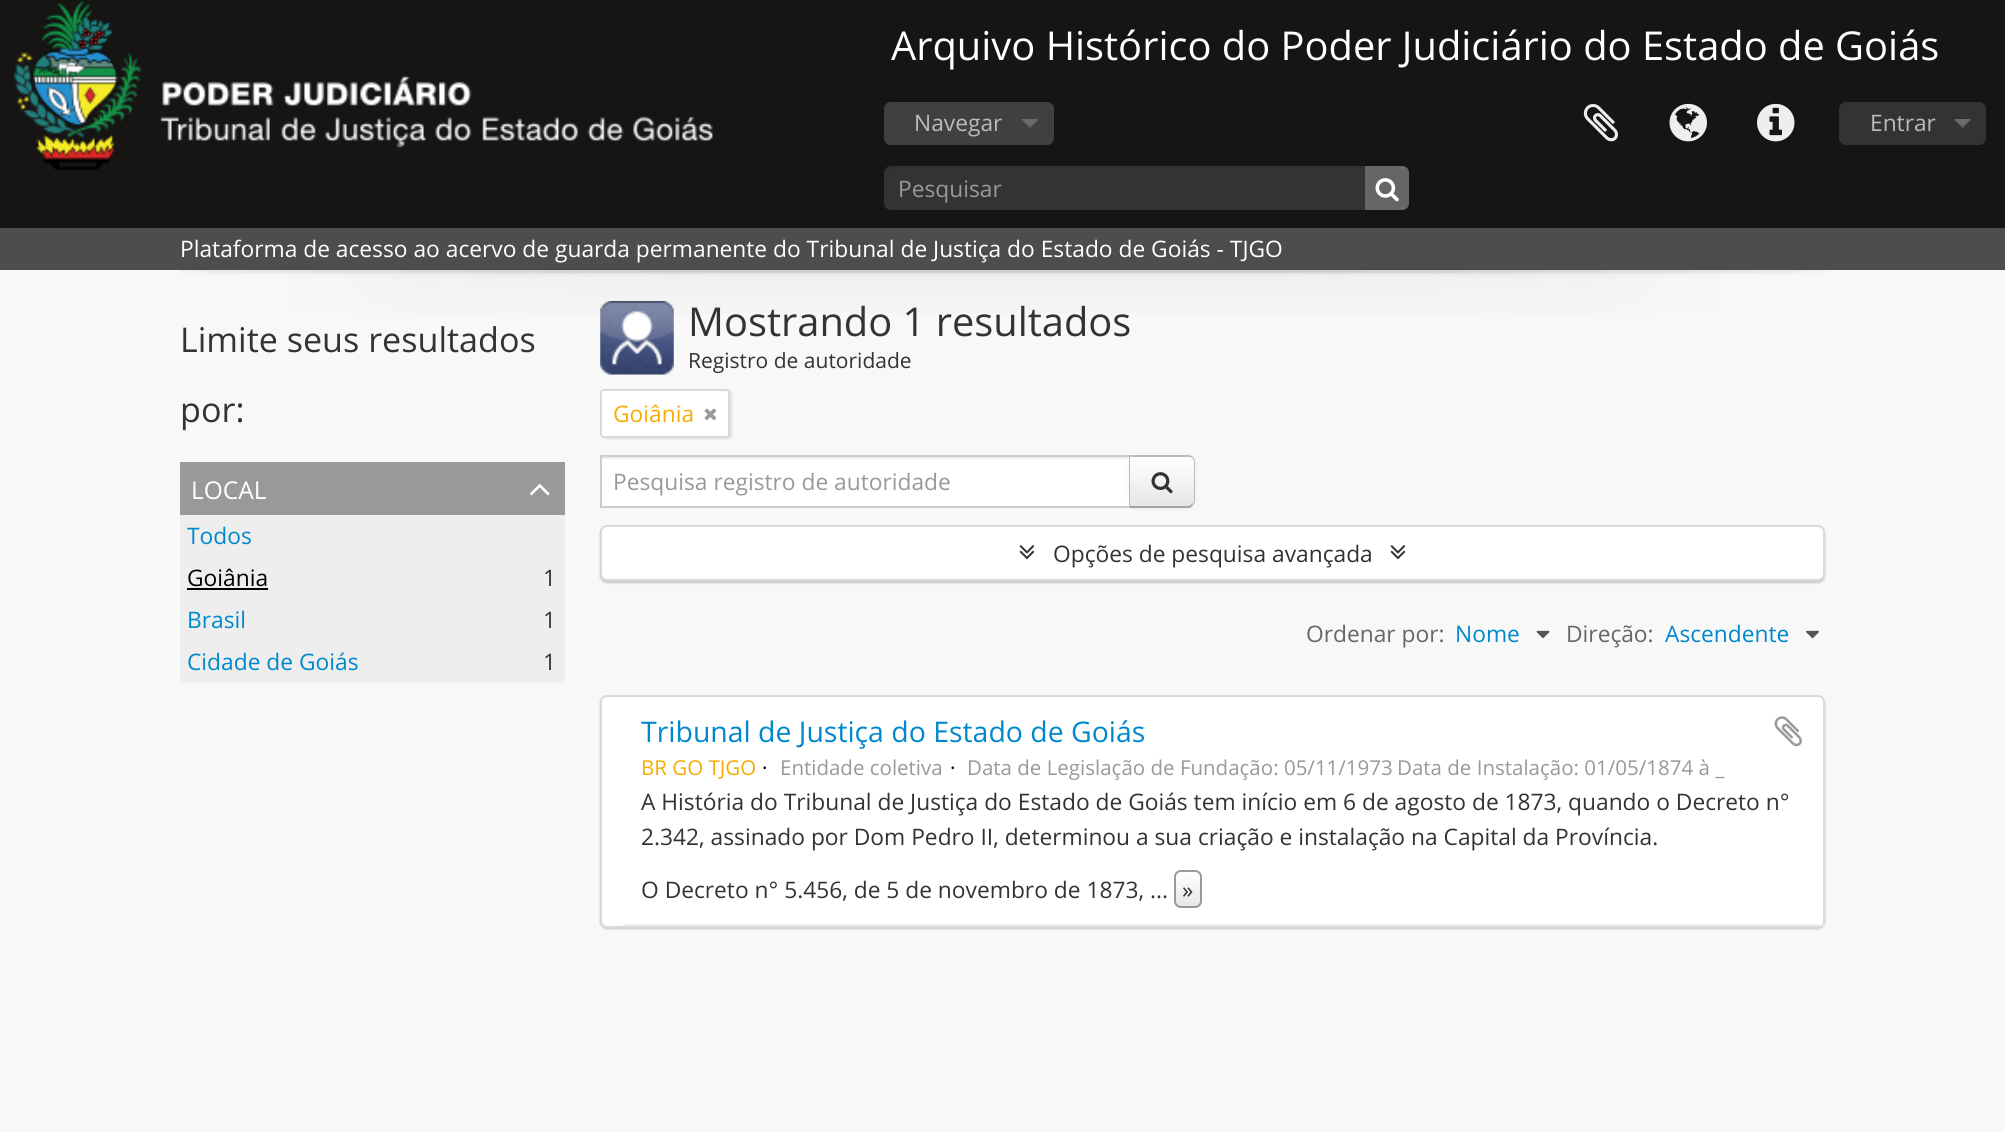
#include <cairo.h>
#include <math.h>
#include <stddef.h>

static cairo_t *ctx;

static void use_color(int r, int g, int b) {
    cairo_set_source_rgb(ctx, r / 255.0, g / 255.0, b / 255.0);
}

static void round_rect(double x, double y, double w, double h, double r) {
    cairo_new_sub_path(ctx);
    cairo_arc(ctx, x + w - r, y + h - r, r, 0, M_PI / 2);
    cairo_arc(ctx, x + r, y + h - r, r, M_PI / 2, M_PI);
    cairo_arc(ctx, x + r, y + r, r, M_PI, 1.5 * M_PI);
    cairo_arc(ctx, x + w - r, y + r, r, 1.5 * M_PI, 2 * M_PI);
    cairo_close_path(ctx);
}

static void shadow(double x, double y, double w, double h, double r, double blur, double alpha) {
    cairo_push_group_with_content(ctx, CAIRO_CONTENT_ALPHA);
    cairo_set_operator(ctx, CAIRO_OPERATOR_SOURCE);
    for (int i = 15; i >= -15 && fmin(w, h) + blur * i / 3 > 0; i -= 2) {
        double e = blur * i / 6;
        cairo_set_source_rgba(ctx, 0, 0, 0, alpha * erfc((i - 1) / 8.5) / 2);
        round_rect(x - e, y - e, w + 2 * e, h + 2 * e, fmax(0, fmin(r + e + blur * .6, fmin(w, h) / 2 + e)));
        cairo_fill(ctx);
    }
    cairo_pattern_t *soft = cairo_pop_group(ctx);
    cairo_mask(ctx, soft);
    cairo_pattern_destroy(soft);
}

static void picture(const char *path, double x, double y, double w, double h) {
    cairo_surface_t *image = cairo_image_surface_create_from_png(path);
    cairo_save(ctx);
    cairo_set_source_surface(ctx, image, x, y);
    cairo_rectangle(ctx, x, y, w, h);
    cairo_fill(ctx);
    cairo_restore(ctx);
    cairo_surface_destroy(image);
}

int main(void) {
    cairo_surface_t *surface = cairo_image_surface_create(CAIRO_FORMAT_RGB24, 2005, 1132);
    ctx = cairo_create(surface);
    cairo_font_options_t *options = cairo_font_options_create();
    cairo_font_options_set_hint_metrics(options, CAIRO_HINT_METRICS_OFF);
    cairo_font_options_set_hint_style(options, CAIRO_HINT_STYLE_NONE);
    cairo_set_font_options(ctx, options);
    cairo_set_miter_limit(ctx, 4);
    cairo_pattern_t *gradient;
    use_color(248, 248, 248);
    cairo_paint(ctx);
    use_color(22, 21, 20);
    cairo_rectangle(ctx, 0, 0, 2005, 228);
    cairo_fill(ctx);
    picture("img1.png", 14, 0, 699, 170);
    cairo_select_font_face(ctx, "Open Sans", CAIRO_FONT_SLANT_NORMAL, CAIRO_FONT_WEIGHT_NORMAL);
    cairo_set_font_size(ctx, 39.8);
    use_color(255, 255, 255);
    cairo_move_to(ctx, 891, 60);
    cairo_show_text(ctx, "Arquivo Histórico do Poder Judiciário do Estado de Goiás");
    use_color(64, 64, 64);
    round_rect(884, 102, 170, 43, 7);
    cairo_fill(ctx);
    picture("img2.png", 1022, 119, 17, 9);
    cairo_set_font_size(ctx, 22.75);
    use_color(187, 187, 187);
    cairo_move_to(ctx, 914, 131);
    cairo_show_text(ctx, "Navegar");
    use_color(51, 51, 51);
    round_rect(884, 166, 525, 44, 7);
    cairo_fill(ctx);
    cairo_set_source_rgba(ctx, 0, 0, 0, 0.07);
    cairo_new_path(ctx);
    cairo_move_to(ctx, 891, 168);
    cairo_line_to(ctx, 1402, 168);
    cairo_curve_to(ctx, 1406, 168, 1409, 171, 1409, 175);
    cairo_curve_to(ctx, 1409, 171, 1407, 166, 1402, 166);
    cairo_line_to(ctx, 891, 166);
    cairo_curve_to(ctx, 886, 166, 884, 171, 884, 175);
    cairo_curve_to(ctx, 884, 171, 887, 168, 891, 168);
    cairo_close_path(ctx);
    cairo_fill(ctx);
    use_color(153, 153, 153);
    cairo_move_to(ctx, 898, 197);
    cairo_show_text(ctx, "Pesquisar");
    use_color(102, 102, 102);
    cairo_new_path(ctx);
    cairo_move_to(ctx, 1365, 166);
    cairo_line_to(ctx, 1402, 166);
    cairo_curve_to(ctx, 1406, 166, 1409, 169, 1409, 173);
    cairo_line_to(ctx, 1409, 203);
    cairo_curve_to(ctx, 1409, 207, 1406, 210, 1402, 210);
    cairo_line_to(ctx, 1365, 210);
    cairo_close_path(ctx);
    cairo_fill(ctx);
    picture("img3.png", 1375, 178, 24, 24);
    picture("img4.png", 1583, 104, 35, 38);
    picture("img5.png", 1669, 103, 38, 39);
    picture("img6.png", 1757, 103, 38, 39);
    use_color(51, 51, 51);
    round_rect(1839, 102, 147, 43, 7);
    cairo_fill(ctx);
    picture("img7.png", 1954, 119, 17, 9);
    use_color(187, 187, 187);
    cairo_move_to(ctx, 1870, 131);
    cairo_show_text(ctx, "Entrar");
    picture("img8.png", 180, 269, 1645, 45);
    cairo_set_source_rgba(ctx, 0.086, 0.082, 0.078, 0.75);
    cairo_rectangle(ctx, 0, 228, 2005, 42);
    cairo_fill(ctx);
    use_color(255, 255, 255);
    cairo_move_to(ctx, 180, 257);
    cairo_show_text(ctx, "Plataforma de acesso ao acervo de guarda permanente do Tribunal de Justiça do Estado de Goiás - TJGO");
    cairo_set_font_size(ctx, 34.1);
    use_color(51, 51, 51);
    cairo_move_to(ctx, 180, 352);
    cairo_show_text(ctx, "Limite seus resultados");
    cairo_move_to(ctx, 180, 422);
    cairo_show_text(ctx, "por:");
    use_color(153, 153, 153);
    cairo_rectangle(ctx, 180, 462, 385, 53);
    cairo_fill(ctx);
    cairo_set_font_size(ctx, 24.5);
    use_color(255, 255, 255);
    cairo_move_to(ctx, 191, 499);
    cairo_show_text(ctx, "LOCAL");
    picture("img9.png", 530, 484, 20, 12);
    use_color(238, 238, 238);
    cairo_rectangle(ctx, 180, 515, 385, 168);
    cairo_fill(ctx);
    cairo_set_font_size(ctx, 22.75);
    use_color(0, 136, 204);
    cairo_move_to(ctx, 187, 544);
    cairo_show_text(ctx, "Todos");
    use_color(0, 0, 0);
    cairo_move_to(ctx, 187, 586);
    cairo_show_text(ctx, "Goiânia");
    cairo_rectangle(ctx, 187, 588, 81, 2);
    cairo_fill(ctx);
    use_color(51, 51, 51);
    cairo_move_to(ctx, 543, 586);
    cairo_show_text(ctx, "1");
    use_color(0, 136, 204);
    cairo_move_to(ctx, 187, 628);
    cairo_show_text(ctx, "Brasil");
    use_color(51, 51, 51);
    cairo_move_to(ctx, 543, 628);
    cairo_show_text(ctx, "1");
    use_color(0, 136, 204);
    cairo_move_to(ctx, 187, 670);
    cairo_show_text(ctx, "Cidade de Goiás");
    use_color(51, 51, 51);
    cairo_move_to(ctx, 543, 670);
    cairo_show_text(ctx, "1");
    picture("img10.png", 600, 301, 74, 74);
    cairo_set_font_size(ctx, 39.8);
    cairo_move_to(ctx, 688, 336);
    cairo_show_text(ctx, "Mostrando 1 resultados");
    cairo_set_font_size(ctx, 21);
    cairo_move_to(ctx, 688, 368);
    cairo_show_text(ctx, "Registro de autoridade");
    use_color(0, 0, 0);
    shadow(602, 390, 130, 49, 4, 1, 0.1);
    use_color(255, 255, 255);
    round_rect(601, 390, 128, 47, 3);
    cairo_fill_preserve(ctx);
    use_color(217, 217, 217);
    cairo_stroke(ctx);
    cairo_set_font_size(ctx, 22.75);
    use_color(246, 172, 0);
    cairo_move_to(ctx, 613, 422);
    cairo_show_text(ctx, "Goiânia");
    picture("img11.png", 704, 408, 13, 13);
    use_color(255, 255, 255);
    cairo_rectangle(ctx, 602, 459, 527, 47);
    cairo_fill(ctx);
    use_color(236, 236, 236);
    cairo_rectangle(ctx, 602, 457, 529, 2);
    cairo_fill(ctx);
    cairo_rectangle(ctx, 601, 456, 530, 51);
    use_color(204, 204, 204);
    cairo_stroke(ctx);
    use_color(153, 153, 153);
    cairo_move_to(ctx, 613, 490);
    cairo_show_text(ctx, "Pesquisa registro de autoridade");
    use_color(0, 0, 0);
    shadow(1129, 457, 66, 52, 7, 2, 0.05);
    use_color(245, 245, 245);
    cairo_new_path(ctx);
    cairo_move_to(ctx, 1129, 455);
    cairo_line_to(ctx, 1188, 455);
    cairo_curve_to(ctx, 1192, 455, 1195, 458, 1195, 462);
    cairo_line_to(ctx, 1195, 501);
    cairo_curve_to(ctx, 1195, 505, 1192, 508, 1188, 508);
    cairo_line_to(ctx, 1129, 508);
    cairo_close_path(ctx);
    cairo_fill(ctx);
    cairo_save(ctx);
    cairo_new_path(ctx);
    cairo_move_to(ctx, 1129, 455);
    cairo_line_to(ctx, 1188, 455);
    cairo_curve_to(ctx, 1192, 455, 1195, 458, 1195, 462);
    cairo_line_to(ctx, 1195, 501);
    cairo_curve_to(ctx, 1195, 505, 1192, 508, 1188, 508);
    cairo_line_to(ctx, 1129, 508);
    cairo_close_path(ctx);
    cairo_clip(ctx);
    gradient = cairo_pattern_create_linear(1162, 457, 1162, 506);
    cairo_pattern_add_color_stop_rgba(gradient, 0, 1, 1, 1, 1);
    cairo_pattern_add_color_stop_rgba(gradient, 1, 0.902, 0.902, 0.902, 1);
    cairo_set_source(ctx, gradient);
    cairo_pattern_destroy(gradient);
    cairo_rectangle(ctx, 1130, 457, 65, 49);
    cairo_fill(ctx);
    cairo_restore(ctx);
    use_color(187, 187, 187);
    cairo_new_path(ctx);
    cairo_move_to(ctx, 1129, 455);
    cairo_line_to(ctx, 1131, 457);
    cairo_line_to(ctx, 1188, 457);
    cairo_curve_to(ctx, 1189, 457, 1191, 457, 1192, 458);
    cairo_line_to(ctx, 1193, 457);
    cairo_curve_to(ctx, 1192, 456, 1190, 455, 1188, 455);
    cairo_close_path(ctx);
    cairo_fill(ctx);
    cairo_new_path(ctx);
    cairo_move_to(ctx, 1193, 457);
    cairo_curve_to(ctx, 1194, 458, 1195, 460, 1195, 462);
    cairo_line_to(ctx, 1195, 500);
    cairo_curve_to(ctx, 1195, 502, 1194, 504, 1193, 505);
    cairo_line_to(ctx, 1192, 504);
    cairo_curve_to(ctx, 1193, 503, 1194, 502, 1194, 500);
    cairo_line_to(ctx, 1194, 462);
    cairo_curve_to(ctx, 1194, 460, 1193, 459, 1192, 458);
    cairo_close_path(ctx);
    cairo_fill(ctx);
    use_color(162, 162, 162);
    cairo_new_path(ctx);
    cairo_move_to(ctx, 1129, 508);
    cairo_line_to(ctx, 1130, 506);
    cairo_line_to(ctx, 1188, 506);
    cairo_curve_to(ctx, 1189, 506, 1191, 505, 1192, 504);
    cairo_line_to(ctx, 1193, 505);
    cairo_line_to(ctx, 1190, 508);
    cairo_close_path(ctx);
    cairo_fill(ctx);
    use_color(187, 187, 187);
    cairo_new_path(ctx);
    cairo_move_to(ctx, 1130, 457);
    cairo_line_to(ctx, 1131, 457);
    cairo_line_to(ctx, 1129, 455);
    cairo_line_to(ctx, 1129, 507);
    cairo_line_to(ctx, 1130, 506);
    cairo_close_path(ctx);
    cairo_fill(ctx);
    picture("img12.png", 1151, 472, 22, 22);
    use_color(0, 0, 0);
    shadow(600, 527, 1225, 56, 7, 1, 0.2);
    use_color(255, 255, 255);
    round_rect(601, 526, 1223, 54, 6);
    cairo_fill_preserve(ctx);
    use_color(217, 217, 217);
    cairo_stroke(ctx);
    picture("img13.png", 1019, 545, 16, 15);
    use_color(51, 51, 51);
    cairo_move_to(ctx, 1053, 562);
    cairo_show_text(ctx, "Opções de pesquisa avançada");
    picture("img13.png", 1390, 545, 16, 15);
    use_color(102, 102, 102);
    cairo_move_to(ctx, 1306, 642);
    cairo_show_text(ctx, "Ordenar por:");
    use_color(0, 136, 204);
    cairo_move_to(ctx, 1455, 642);
    cairo_show_text(ctx, "Nome");
    picture("img14.png", 1536, 630, 14, 9);
    use_color(102, 102, 102);
    cairo_move_to(ctx, 1566, 642);
    cairo_show_text(ctx, "Direção:");
    use_color(0, 136, 204);
    cairo_move_to(ctx, 1665, 642);
    cairo_show_text(ctx, "Ascendente");
    picture("img15.png", 1806, 630, 13, 9);
    use_color(0, 0, 0);
    shadow(600, 697, 1225, 232, 7, 1, 0.2);
    use_color(255, 255, 255);
    round_rect(601, 696, 1223, 231, 6);
    cairo_fill_preserve(ctx);
    use_color(217, 217, 217);
    cairo_stroke(ctx);
    use_color(238, 238, 238);
    cairo_rectangle(ctx, 623, 924, 1201, 2);
    cairo_fill(ctx);
    cairo_save(ctx);
    cairo_rectangle(ctx, 641, 714, 1121, 35);
    cairo_clip(ctx);
    cairo_set_font_size(ctx, 28.4);
    use_color(0, 136, 204);
    cairo_move_to(ctx, 641, 742);
    cairo_show_text(ctx, "Tribunal de Justiça do Estado de Goiás");
    cairo_restore(ctx);
    picture("img16.png", 1774, 716, 28, 31);
    cairo_set_font_size(ctx, 20.5);
    use_color(246, 172, 0);
    cairo_move_to(ctx, 641, 775);
    cairo_show_text(ctx, "BR GO TJGO");
    use_color(0, 0, 0);
    cairo_move_to(ctx, 762, 775);
    cairo_show_text(ctx, "·");
    use_color(153, 153, 153);
    cairo_move_to(ctx, 780, 775);
    cairo_show_text(ctx, "Entidade coletiva");
    use_color(0, 0, 0);
    cairo_move_to(ctx, 950, 775);
    cairo_show_text(ctx, "·");
    use_color(153, 153, 153);
    cairo_move_to(ctx, 967, 775);
    cairo_show_text(ctx, "Data de Legislação de Fundação: 05/11/1973");
    cairo_move_to(ctx, 1397, 775);
    cairo_show_text(ctx, "Data de Instalação: 01/05/1874 à _");
    cairo_set_font_size(ctx, 22.75);
    use_color(51, 51, 51);
    cairo_move_to(ctx, 641, 810);
    cairo_show_text(ctx, "A História do Tribunal de Justiça do Estado de Goiás tem início em 6 de agosto de 1873, quando o Decreto n°");
    cairo_move_to(ctx, 641, 845);
    cairo_show_text(ctx, "2.342, assinado por Dom Pedro II, determinou a sua criação e instalação na Capital da Província.");
    cairo_move_to(ctx, 641, 898);
    cairo_show_text(ctx, "O Decreto n° 5.456, de 5 de novembro de 1873, ...");
    cairo_save(ctx);
    round_rect(1174, 870, 28, 38, 7);
    cairo_clip(ctx);
    gradient = cairo_pattern_create_linear(1188, 872, 1188, 907);
    cairo_pattern_add_color_stop_rgba(gradient, 0, 1, 1, 1, 1);
    cairo_pattern_add_color_stop_rgba(gradient, 1, 0.902, 0.902, 0.902, 1);
    cairo_set_source(ctx, gradient);
    cairo_pattern_destroy(gradient);
    cairo_rectangle(ctx, 1174, 872, 28, 35);
    cairo_fill(ctx);
    cairo_restore(ctx);
    round_rect(1175, 871, 26, 36, 6);
    use_color(153, 153, 153);
    cairo_stroke(ctx);
    use_color(51, 51, 51);
    cairo_move_to(ctx, 1182, 898);
    cairo_show_text(ctx, "»");
    cairo_surface_write_to_png(surface, "result.png");
    cairo_font_options_destroy(options);
    cairo_destroy(ctx);
    cairo_surface_destroy(surface);
    return 0;
}
